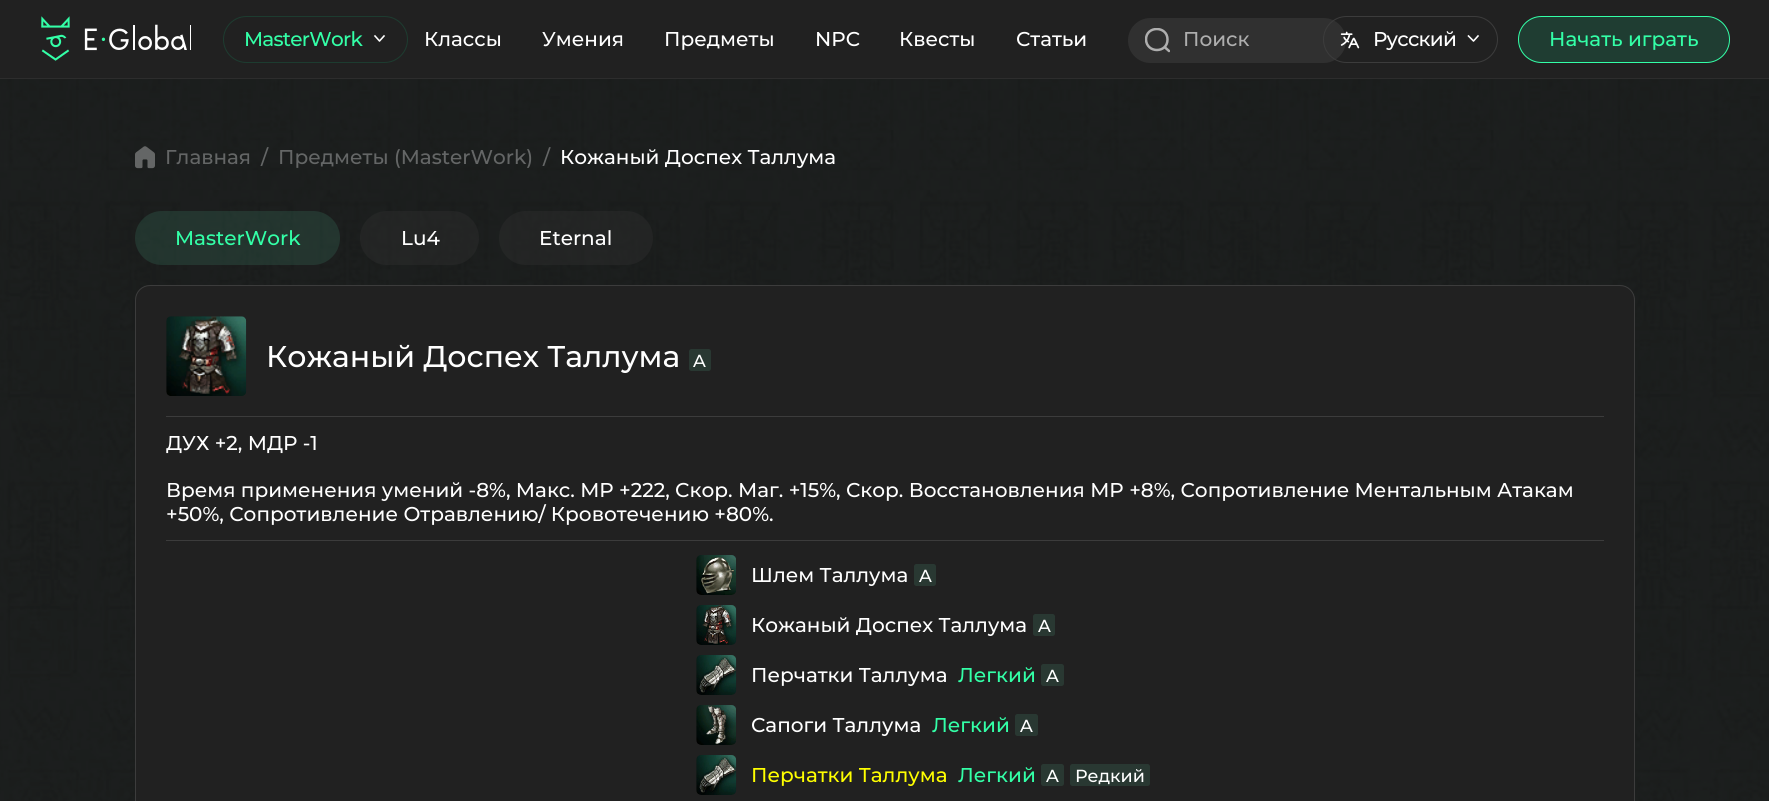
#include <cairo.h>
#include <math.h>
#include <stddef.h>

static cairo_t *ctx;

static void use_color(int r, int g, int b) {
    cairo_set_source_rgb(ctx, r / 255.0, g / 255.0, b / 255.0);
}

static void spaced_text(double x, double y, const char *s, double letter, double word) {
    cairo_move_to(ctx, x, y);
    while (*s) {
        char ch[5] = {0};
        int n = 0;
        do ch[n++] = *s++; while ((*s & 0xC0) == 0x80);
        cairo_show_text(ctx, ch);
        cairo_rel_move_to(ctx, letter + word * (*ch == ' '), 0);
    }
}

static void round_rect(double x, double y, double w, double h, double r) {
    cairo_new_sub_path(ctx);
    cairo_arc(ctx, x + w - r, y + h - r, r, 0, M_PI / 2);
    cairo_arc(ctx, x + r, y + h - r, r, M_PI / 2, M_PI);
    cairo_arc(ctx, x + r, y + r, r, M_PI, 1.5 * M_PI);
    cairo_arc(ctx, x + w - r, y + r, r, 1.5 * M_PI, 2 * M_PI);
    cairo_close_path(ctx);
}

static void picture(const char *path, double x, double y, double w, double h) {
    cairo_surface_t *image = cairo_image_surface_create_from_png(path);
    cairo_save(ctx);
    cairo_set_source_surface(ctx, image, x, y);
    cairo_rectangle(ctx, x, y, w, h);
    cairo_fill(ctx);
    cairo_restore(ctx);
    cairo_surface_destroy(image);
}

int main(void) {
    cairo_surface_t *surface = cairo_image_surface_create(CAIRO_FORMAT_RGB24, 1769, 801);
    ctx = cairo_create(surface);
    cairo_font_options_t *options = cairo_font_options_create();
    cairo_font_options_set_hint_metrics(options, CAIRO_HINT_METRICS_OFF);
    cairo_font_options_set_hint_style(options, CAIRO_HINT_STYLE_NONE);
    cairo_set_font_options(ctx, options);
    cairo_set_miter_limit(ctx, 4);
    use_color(255, 255, 255);
    cairo_paint(ctx);
    picture("img1.png", 0, 79, 1769, 722);
    use_color(33, 33, 33);
    cairo_rectangle(ctx, 0, 0, 1769, 78);
    cairo_fill(ctx);
    use_color(45, 45, 45);
    cairo_rectangle(ctx, 0, 78, 1769, 1);
    cairo_fill(ctx);
    picture("img2.png", 41, 16, 150, 45);
    round_rect(223.5, 16.5, 184, 46, 23);
    use_color(29, 60, 48);
    cairo_set_line_width(ctx, 1);
    cairo_stroke(ctx);
    cairo_select_font_face(ctx, "Montserrat Medium", CAIRO_FONT_SLANT_NORMAL, CAIRO_FONT_WEIGHT_NORMAL);
    cairo_set_font_size(ctx, 20);
    use_color(51, 255, 167);
    spaced_text(244, 46, "MasterWork", -0.75, 0);
    cairo_new_path(ctx);
    cairo_move_to(ctx, 375, 36);
    cairo_line_to(ctx, 379.5, 41);
    cairo_line_to(ctx, 384, 36);
    use_color(255, 255, 255);
    cairo_set_line_width(ctx, 1.6);
    cairo_set_line_cap(ctx, CAIRO_LINE_CAP_SQUARE);
    cairo_set_line_join(ctx, CAIRO_LINE_JOIN_ROUND);
    cairo_stroke(ctx);
    cairo_move_to(ctx, 424, 46);
    cairo_show_text(ctx, "Классы");
    cairo_move_to(ctx, 542, 46);
    cairo_show_text(ctx, "Умения");
    cairo_move_to(ctx, 664, 46);
    cairo_show_text(ctx, "Предметы");
    cairo_move_to(ctx, 815, 46);
    cairo_show_text(ctx, "NPC");
    cairo_move_to(ctx, 899, 46);
    cairo_show_text(ctx, "Квесты");
    cairo_move_to(ctx, 1016, 46);
    cairo_show_text(ctx, "Статьи");
    use_color(48, 48, 48);
    round_rect(1128, 18, 218, 45, 22.5);
    cairo_fill(ctx);
    cairo_save(ctx);
    cairo_rectangle(ctx, 1145, 28, 25, 25);
    cairo_clip(ctx);
    cairo_new_path(ctx);
    cairo_move_to(ctx, 1169, 51);
    cairo_line_to(ctx, 1164.5, 47);
    cairo_move_to(ctx, 1167.5, 39.5);
    cairo_curve_to(ctx, 1167.5, 53.5, 1146.5, 53.5, 1146, 39.5);
    cairo_curve_to(ctx, 1146, 25.5, 1167.5, 25.5, 1167.5, 39.5);
    cairo_close_path(ctx);
    use_color(174, 174, 174);
    cairo_set_line_width(ctx, 2.5);
    cairo_set_line_cap(ctx, CAIRO_LINE_CAP_ROUND);
    cairo_stroke(ctx);
    cairo_restore(ctx);
    use_color(174, 174, 174);
    cairo_move_to(ctx, 1183, 46);
    cairo_show_text(ctx, "Поиск");
    round_rect(1323.5, 16.5, 174, 46, 23);
    use_color(60, 60, 60);
    cairo_set_line_width(ctx, 1);
    cairo_set_line_cap(ctx, CAIRO_LINE_CAP_BUTT);
    cairo_set_line_join(ctx, CAIRO_LINE_JOIN_MITER);
    cairo_stroke(ctx);
    picture("img3.png", 1340, 31, 20, 18);
    use_color(255, 255, 255);
    spaced_text(1373, 46, "Русский", -0.75, 0);
    cairo_new_path(ctx);
    cairo_move_to(ctx, 1468.5, 36);
    cairo_line_to(ctx, 1473.5, 41);
    cairo_line_to(ctx, 1478, 36);
    cairo_set_line_width(ctx, 1.6);
    cairo_set_line_cap(ctx, CAIRO_LINE_CAP_SQUARE);
    cairo_set_line_join(ctx, CAIRO_LINE_JOIN_ROUND);
    cairo_stroke(ctx);
    use_color(31, 61, 50);
    round_rect(1518.5, 16.5, 211, 46, 23);
    cairo_fill_preserve(ctx);
    use_color(51, 255, 167);
    cairo_set_line_width(ctx, 1);
    cairo_set_line_cap(ctx, CAIRO_LINE_CAP_BUTT);
    cairo_set_line_join(ctx, CAIRO_LINE_JOIN_MITER);
    cairo_stroke(ctx);
    cairo_move_to(ctx, 1549, 46);
    cairo_show_text(ctx, "Начать играть");
    picture("img4.png", 135, 146, 20, 23);
    use_color(100, 102, 102);
    cairo_move_to(ctx, 165, 164);
    cairo_show_text(ctx, "Главная");
    cairo_move_to(ctx, 261, 164);
    cairo_show_text(ctx, "/");
    cairo_move_to(ctx, 278, 164);
    cairo_show_text(ctx, "Предметы (MasterWork)");
    cairo_move_to(ctx, 543, 164);
    cairo_show_text(ctx, "/");
    use_color(255, 255, 255);
    cairo_move_to(ctx, 560, 164);
    cairo_show_text(ctx, "Кожаный Доспех Таллума");
    cairo_set_source_rgba(ctx, 0.38, 0.898, 0.702, 0.12);
    round_rect(135, 211, 205, 54, 27);
    cairo_fill(ctx);
    use_color(51, 255, 167);
    cairo_move_to(ctx, 175, 245);
    cairo_show_text(ctx, "MasterWork");
    cairo_set_source_rgba(ctx, 0.188, 0.188, 0.188, 0.4);
    round_rect(360, 211, 119, 54, 27);
    cairo_fill(ctx);
    use_color(255, 255, 255);
    cairo_move_to(ctx, 401, 245);
    cairo_show_text(ctx, "Lu4");
    cairo_set_source_rgba(ctx, 0.188, 0.188, 0.188, 0.4);
    round_rect(499, 211, 154, 54, 27);
    cairo_fill(ctx);
    use_color(255, 255, 255);
    cairo_move_to(ctx, 539, 245);
    cairo_show_text(ctx, "Eternal");
    use_color(33, 33, 33);
    round_rect(135.5, 285.5, 1499, 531, 14.5);
    cairo_fill_preserve(ctx);
    use_color(60, 60, 60);
    cairo_stroke(ctx);
    picture("img5.png", 166, 316, 81, 80);
    cairo_set_font_size(ctx, 30);
    use_color(255, 255, 255);
    cairo_move_to(ctx, 266, 367);
    cairo_show_text(ctx, "Кожаный Доспех Таллума");
    use_color(41, 56, 50);
    round_rect(689, 349, 22, 22, 2.5);
    cairo_fill(ctx);
    cairo_set_font_size(ctx, 17.5);
    use_color(255, 255, 255);
    cairo_move_to(ctx, 693, 367);
    cairo_show_text(ctx, "A");
    use_color(60, 60, 60);
    cairo_rectangle(ctx, 166, 416, 1438, 1);
    cairo_fill(ctx);
    cairo_set_font_size(ctx, 20);
    use_color(255, 255, 255);
    cairo_move_to(ctx, 166, 450);
    cairo_show_text(ctx, "ДУХ +2, МДР -1");
    cairo_move_to(ctx, 166, 497);
    cairo_show_text(ctx, "Время применения умений -8%, Макс. MP +222, Скор. Маг. +15%, Скор. Восстановления MP +8%, Сопротивление Ментальным Атакам");
    cairo_move_to(ctx, 166, 521);
    cairo_show_text(ctx, "+50%, Сопротивление Отравлению/ Кровотечению +80%.");
    use_color(60, 60, 60);
    cairo_rectangle(ctx, 166, 540, 1438, 1);
    cairo_fill(ctx);
    picture("img6.png", 696, 555, 40, 40);
    use_color(255, 255, 255);
    cairo_move_to(ctx, 751, 582);
    cairo_show_text(ctx, "Шлем Таллума");
    use_color(41, 56, 50);
    round_rect(914, 564, 22, 22, 2.5);
    cairo_fill(ctx);
    cairo_set_font_size(ctx, 17.5);
    use_color(255, 255, 255);
    cairo_move_to(ctx, 919, 582);
    cairo_show_text(ctx, "A");
    picture("img7.png", 696, 605, 41, 40);
    cairo_set_font_size(ctx, 20);
    cairo_move_to(ctx, 751, 632);
    cairo_show_text(ctx, "Кожаный Доспех Таллума");
    use_color(41, 56, 50);
    round_rect(1033, 614, 22, 22, 2.5);
    cairo_fill(ctx);
    cairo_set_font_size(ctx, 17.5);
    use_color(255, 255, 255);
    cairo_move_to(ctx, 1038, 632);
    cairo_show_text(ctx, "A");
    picture("img8.png", 696, 655, 41, 40);
    cairo_set_font_size(ctx, 20);
    cairo_move_to(ctx, 751, 682);
    cairo_show_text(ctx, "Перчатки Таллума");
    use_color(51, 255, 167);
    cairo_move_to(ctx, 958, 682);
    cairo_show_text(ctx, "Легкий");
    use_color(41, 56, 50);
    round_rect(1041, 664, 23, 22, 2.5);
    cairo_fill(ctx);
    cairo_set_font_size(ctx, 17.5);
    use_color(255, 255, 255);
    cairo_move_to(ctx, 1046, 682);
    cairo_show_text(ctx, "A");
    picture("img9.png", 696, 705, 40, 40);
    cairo_set_font_size(ctx, 20);
    cairo_move_to(ctx, 751, 732);
    cairo_show_text(ctx, "Сапоги Таллума");
    use_color(51, 255, 167);
    cairo_move_to(ctx, 932, 732);
    cairo_show_text(ctx, "Легкий");
    use_color(41, 56, 50);
    round_rect(1015, 714, 23, 22, 2.5);
    cairo_fill(ctx);
    cairo_set_font_size(ctx, 17.5);
    use_color(255, 255, 255);
    cairo_move_to(ctx, 1020, 732);
    cairo_show_text(ctx, "A");
    picture("img10.png", 696, 755, 41, 40);
    cairo_set_font_size(ctx, 20);
    use_color(255, 255, 0);
    cairo_move_to(ctx, 751, 782);
    cairo_show_text(ctx, "Перчатки Таллума");
    use_color(51, 255, 167);
    cairo_move_to(ctx, 958, 782);
    cairo_show_text(ctx, "Легкий");
    use_color(41, 56, 50);
    round_rect(1041, 764, 23, 22, 2.5);
    cairo_fill(ctx);
    cairo_set_font_size(ctx, 17.5);
    use_color(255, 255, 255);
    cairo_move_to(ctx, 1046, 782);
    cairo_show_text(ctx, "A");
    use_color(41, 56, 50);
    round_rect(1070, 764, 80, 22, 2.5);
    cairo_fill(ctx);
    use_color(255, 255, 255);
    cairo_move_to(ctx, 1075, 782);
    cairo_show_text(ctx, "Редкий");
    cairo_surface_write_to_png(surface, "result.png");
    cairo_font_options_destroy(options);
    cairo_destroy(ctx);
    cairo_surface_destroy(surface);
    return 0;
}
